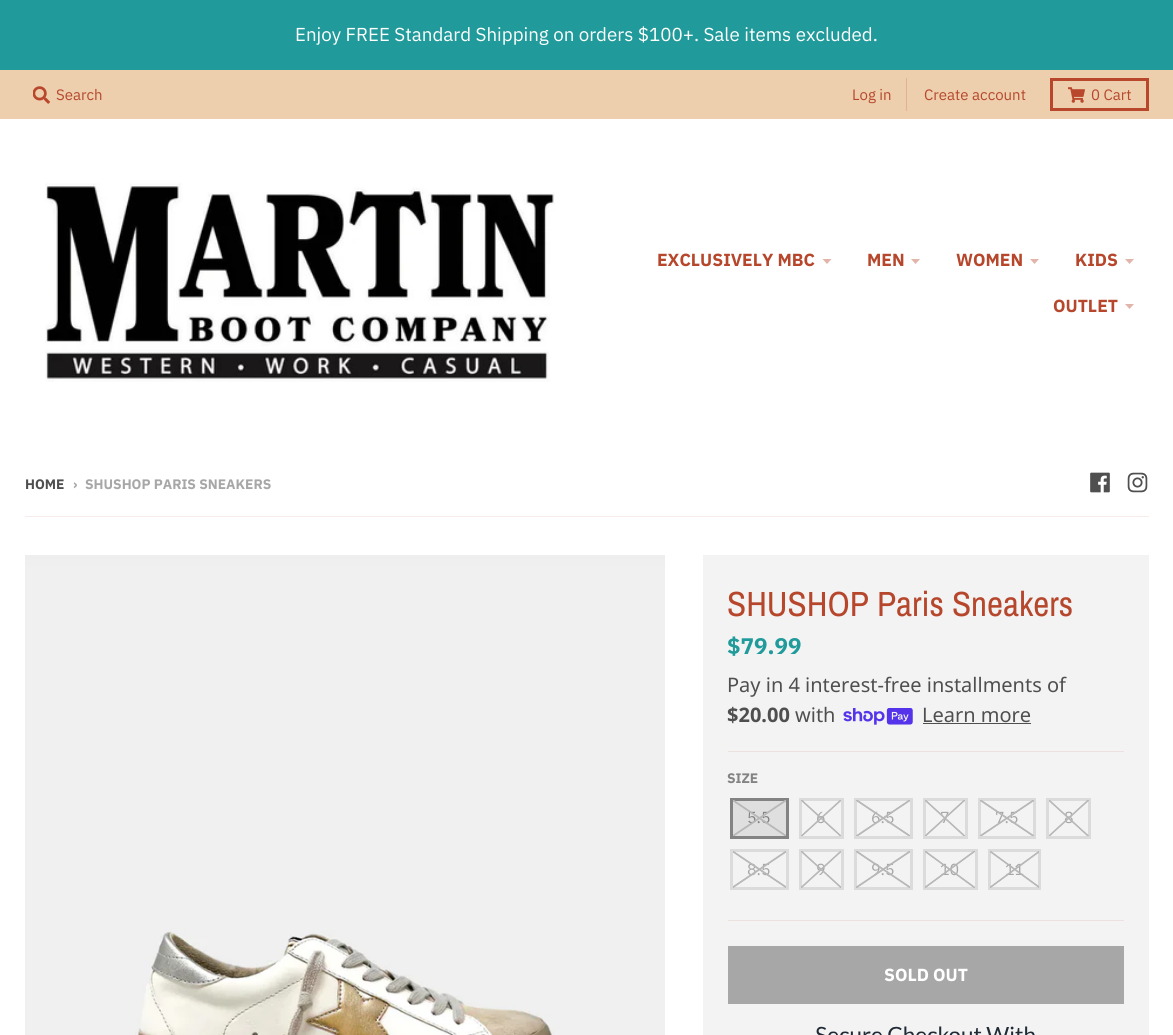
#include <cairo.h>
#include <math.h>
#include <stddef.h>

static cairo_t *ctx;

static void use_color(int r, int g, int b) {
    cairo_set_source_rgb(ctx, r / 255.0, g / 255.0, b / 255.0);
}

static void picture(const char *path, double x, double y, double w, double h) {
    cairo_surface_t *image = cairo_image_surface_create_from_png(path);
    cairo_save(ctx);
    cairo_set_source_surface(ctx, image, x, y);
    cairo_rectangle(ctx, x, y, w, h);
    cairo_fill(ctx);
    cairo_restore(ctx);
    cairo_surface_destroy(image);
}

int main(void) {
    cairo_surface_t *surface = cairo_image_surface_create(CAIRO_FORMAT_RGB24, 1173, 1035);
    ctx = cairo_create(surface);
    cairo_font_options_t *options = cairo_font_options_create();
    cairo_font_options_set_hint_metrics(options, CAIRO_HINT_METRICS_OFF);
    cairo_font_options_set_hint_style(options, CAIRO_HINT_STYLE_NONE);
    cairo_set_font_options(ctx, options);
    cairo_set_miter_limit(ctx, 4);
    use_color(255, 255, 255);
    cairo_paint(ctx);
    use_color(32, 154, 154);
    cairo_rectangle(ctx, 0, 0, 1173, 70);
    cairo_fill(ctx);
    cairo_select_font_face(ctx, "IBM Plex Sans", CAIRO_FONT_SLANT_NORMAL, CAIRO_FONT_WEIGHT_NORMAL);
    cairo_set_font_size(ctx, 18.75);
    use_color(255, 255, 255);
    cairo_move_to(ctx, 295, 41);
    cairo_show_text(ctx, "Enjoy FREE Standard Shipping on orders $100+. Sale items excluded.");
    use_color(237, 206, 173);
    cairo_rectangle(ctx, 0, 70, 1173, 49);
    cairo_fill(ctx);
    picture("img1.png", 33, 86, 17, 18);
    cairo_set_font_size(ctx, 15);
    use_color(182, 71, 44);
    cairo_move_to(ctx, 56, 100);
    cairo_show_text(ctx, "Search");
    use_color(226, 179, 147);
    cairo_rectangle(ctx, 906, 78, 1, 33);
    cairo_fill(ctx);
    use_color(182, 71, 44);
    cairo_move_to(ctx, 852, 100);
    cairo_show_text(ctx, "Log in");
    cairo_move_to(ctx, 924, 100);
    cairo_show_text(ctx, "Create account");
    cairo_rectangle(ctx, 1051.5, 79.5, 96, 30);
    use_color(185, 71, 44);
    cairo_set_line_width(ctx, 3);
    cairo_stroke(ctx);
    picture("img2.png", 1068, 87, 17, 16);
    use_color(182, 71, 44);
    cairo_move_to(ctx, 1091, 100);
    cairo_show_text(ctx, "0 Cart");
    picture("img3.png", 45, 183, 510, 199);
    cairo_select_font_face(ctx, "IBM Plex Sans", CAIRO_FONT_SLANT_NORMAL, CAIRO_FONT_WEIGHT_BOLD);
    cairo_set_font_size(ctx, 17.5);
    cairo_move_to(ctx, 657, 266);
    cairo_show_text(ctx, "EXCLUSIVELY MBC");
    use_color(226, 181, 171);
    cairo_new_path(ctx);
    cairo_move_to(ctx, 822.5, 259);
    cairo_line_to(ctx, 827, 264);
    cairo_line_to(ctx, 831.5, 259);
    cairo_close_path(ctx);
    cairo_fill(ctx);
    use_color(182, 71, 44);
    cairo_move_to(ctx, 867, 266);
    cairo_show_text(ctx, "MEN");
    use_color(226, 181, 171);
    cairo_new_path(ctx);
    cairo_move_to(ctx, 911, 259);
    cairo_line_to(ctx, 915.5, 264);
    cairo_line_to(ctx, 920, 259);
    cairo_close_path(ctx);
    cairo_fill(ctx);
    use_color(182, 71, 44);
    cairo_move_to(ctx, 956, 266);
    cairo_show_text(ctx, "WOMEN");
    use_color(226, 181, 171);
    cairo_new_path(ctx);
    cairo_move_to(ctx, 1030, 259);
    cairo_line_to(ctx, 1034.5, 264);
    cairo_line_to(ctx, 1039, 259);
    cairo_close_path(ctx);
    cairo_fill(ctx);
    use_color(182, 71, 44);
    cairo_move_to(ctx, 1075, 266);
    cairo_show_text(ctx, "KIDS");
    use_color(226, 181, 171);
    cairo_new_path(ctx);
    cairo_move_to(ctx, 1125, 259);
    cairo_line_to(ctx, 1129.5, 264);
    cairo_line_to(ctx, 1134, 259);
    cairo_close_path(ctx);
    cairo_fill(ctx);
    use_color(182, 71, 44);
    cairo_move_to(ctx, 1053, 312);
    cairo_show_text(ctx, "OUTLET");
    use_color(226, 181, 171);
    cairo_new_path(ctx);
    cairo_move_to(ctx, 1125, 304);
    cairo_line_to(ctx, 1129.5, 309);
    cairo_line_to(ctx, 1134, 304);
    cairo_close_path(ctx);
    cairo_fill(ctx);
    cairo_set_font_size(ctx, 13.75);
    use_color(79, 79, 79);
    cairo_move_to(ctx, 25, 489);
    cairo_show_text(ctx, "HOME");
    use_color(167, 167, 167);
    cairo_move_to(ctx, 73, 489);
    cairo_show_text(ctx, "›");
    cairo_move_to(ctx, 85, 489);
    cairo_show_text(ctx, "SHUSHOP PARIS SNEAKERS");
    picture("img4.png", 1090, 472, 20, 21);
    picture("img5.png", 1127, 472, 21, 21);
    use_color(247, 236, 233);
    cairo_rectangle(ctx, 25, 516, 1124, 1);
    cairo_fill(ctx);
    picture("img6.png", 25, 555, 640, 480);
    use_color(243, 243, 243);
    cairo_rectangle(ctx, 703, 555, 446, 480);
    cairo_fill(ctx);
    cairo_select_font_face(ctx, "Archivo Narrow", CAIRO_FONT_SLANT_NORMAL, CAIRO_FONT_WEIGHT_NORMAL);
    cairo_set_font_size(ctx, 35);
    use_color(182, 71, 44);
    cairo_move_to(ctx, 727, 616);
    cairo_show_text(ctx, "SHUSHOP Paris Sneakers");
    use_color(236, 225, 223);
    cairo_rectangle(ctx, 728, 751, 396, 1);
    cairo_fill(ctx);
    cairo_select_font_face(ctx, "IBM Plex Sans", CAIRO_FONT_SLANT_NORMAL, CAIRO_FONT_WEIGHT_BOLD);
    cairo_set_font_size(ctx, 22.5);
    use_color(32, 154, 154);
    cairo_move_to(ctx, 727, 654);
    cairo_show_text(ctx, "$79.99");
    cairo_select_font_face(ctx, "Noto Sans", CAIRO_FONT_SLANT_NORMAL, CAIRO_FONT_WEIGHT_NORMAL);
    cairo_set_font_size(ctx, 20);
    use_color(79, 79, 79);
    cairo_move_to(ctx, 727, 692);
    cairo_show_text(ctx, "Pay in 4 interest-free installments of");
    cairo_select_font_face(ctx, "Noto Sans", CAIRO_FONT_SLANT_NORMAL, CAIRO_FONT_WEIGHT_BOLD);
    cairo_move_to(ctx, 727, 722);
    cairo_show_text(ctx, "$20.00");
    cairo_select_font_face(ctx, "Noto Sans", CAIRO_FONT_SLANT_NORMAL, CAIRO_FONT_WEIGHT_NORMAL);
    cairo_move_to(ctx, 795, 722);
    cairo_show_text(ctx, "with");
    picture("img7.png", 843, 708, 70, 17);
    cairo_move_to(ctx, 922, 722);
    cairo_show_text(ctx, "Learn more");
    cairo_rectangle(ctx, 923, 723, 108, 1);
    cairo_fill(ctx);
    use_color(236, 225, 223);
    cairo_rectangle(ctx, 728, 920, 396, 1);
    cairo_fill(ctx);
    cairo_select_font_face(ctx, "IBM Plex Sans", CAIRO_FONT_SLANT_NORMAL, CAIRO_FONT_WEIGHT_BOLD);
    cairo_set_font_size(ctx, 13.75);
    use_color(131, 131, 131);
    cairo_move_to(ctx, 727, 783);
    cairo_show_text(ctx, "SIZE");
    use_color(223, 223, 223);
    cairo_rectangle(ctx, 731.5, 799.5, 56, 38);
    cairo_fill_preserve(ctx);
    use_color(131, 131, 131);
    cairo_stroke(ctx);
    cairo_select_font_face(ctx, "IBM Plex Sans", CAIRO_FONT_SLANT_NORMAL, CAIRO_FONT_WEIGHT_NORMAL);
    cairo_set_font_size(ctx, 16);
    cairo_move_to(ctx, 747, 823);
    cairo_show_text(ctx, "5.5");
    picture("img8.png", 733, 800, 53, 36);
    cairo_rectangle(ctx, 800.5, 799.5, 42, 38);
    use_color(219, 219, 219);
    cairo_stroke(ctx);
    use_color(167, 167, 167);
    cairo_move_to(ctx, 816, 823);
    cairo_show_text(ctx, "6");
    picture("img9.png", 801, 800, 40, 36);
    cairo_rectangle(ctx, 855.5, 799.5, 56, 38);
    use_color(219, 219, 219);
    cairo_stroke(ctx);
    use_color(167, 167, 167);
    cairo_move_to(ctx, 871, 823);
    cairo_show_text(ctx, "6.5");
    picture("img10.png", 856, 800, 54, 36);
    cairo_rectangle(ctx, 924.5, 799.5, 42, 38);
    use_color(219, 219, 219);
    cairo_stroke(ctx);
    use_color(167, 167, 167);
    cairo_move_to(ctx, 940, 823);
    cairo_show_text(ctx, "7");
    picture("img11.png", 925, 800, 40, 36);
    cairo_rectangle(ctx, 979.5, 799.5, 55, 38);
    use_color(219, 219, 219);
    cairo_stroke(ctx);
    use_color(167, 167, 167);
    cairo_move_to(ctx, 995, 823);
    cairo_show_text(ctx, "7.5");
    picture("img12.png", 980, 800, 54, 36);
    cairo_rectangle(ctx, 1047.5, 799.5, 42, 38);
    use_color(219, 219, 219);
    cairo_stroke(ctx);
    use_color(167, 167, 167);
    cairo_move_to(ctx, 1064, 823);
    cairo_show_text(ctx, "8");
    picture("img13.png", 1049, 800, 40, 36);
    cairo_rectangle(ctx, 731.5, 850.5, 56, 38);
    use_color(219, 219, 219);
    cairo_stroke(ctx);
    use_color(167, 167, 167);
    cairo_move_to(ctx, 747, 875);
    cairo_show_text(ctx, "8.5");
    picture("img14.png", 733, 851, 53, 37);
    cairo_rectangle(ctx, 800.5, 850.5, 42, 38);
    use_color(219, 219, 219);
    cairo_stroke(ctx);
    use_color(167, 167, 167);
    cairo_move_to(ctx, 816, 875);
    cairo_show_text(ctx, "9");
    picture("img15.png", 801, 851, 40, 37);
    cairo_rectangle(ctx, 855.5, 850.5, 56, 38);
    use_color(219, 219, 219);
    cairo_stroke(ctx);
    use_color(167, 167, 167);
    cairo_move_to(ctx, 871, 875);
    cairo_show_text(ctx, "9.5");
    picture("img16.png", 856, 851, 54, 37);
    cairo_rectangle(ctx, 924.5, 850.5, 52, 38);
    use_color(219, 219, 219);
    cairo_stroke(ctx);
    use_color(167, 167, 167);
    cairo_move_to(ctx, 940, 875);
    cairo_show_text(ctx, "10");
    picture("img17.png", 925, 851, 50, 37);
    cairo_rectangle(ctx, 989.5, 850.5, 50, 38);
    use_color(219, 219, 219);
    cairo_stroke(ctx);
    use_color(167, 167, 167);
    cairo_move_to(ctx, 1005, 875);
    cairo_show_text(ctx, "11");
    picture("img18.png", 990, 851, 49, 37);
    cairo_rectangle(ctx, 728, 946, 396, 58);
    cairo_fill(ctx);
    cairo_select_font_face(ctx, "IBM Plex Sans", CAIRO_FONT_SLANT_NORMAL, CAIRO_FONT_WEIGHT_BOLD);
    cairo_set_font_size(ctx, 17.5);
    use_color(255, 255, 255);
    cairo_move_to(ctx, 884, 981);
    cairo_show_text(ctx, "SOLD OUT");
    picture("img19.png", 816, 1026, 219, 9);
    cairo_surface_write_to_png(surface, "result.png");
    cairo_font_options_destroy(options);
    cairo_destroy(ctx);
    cairo_surface_destroy(surface);
    return 0;
}
